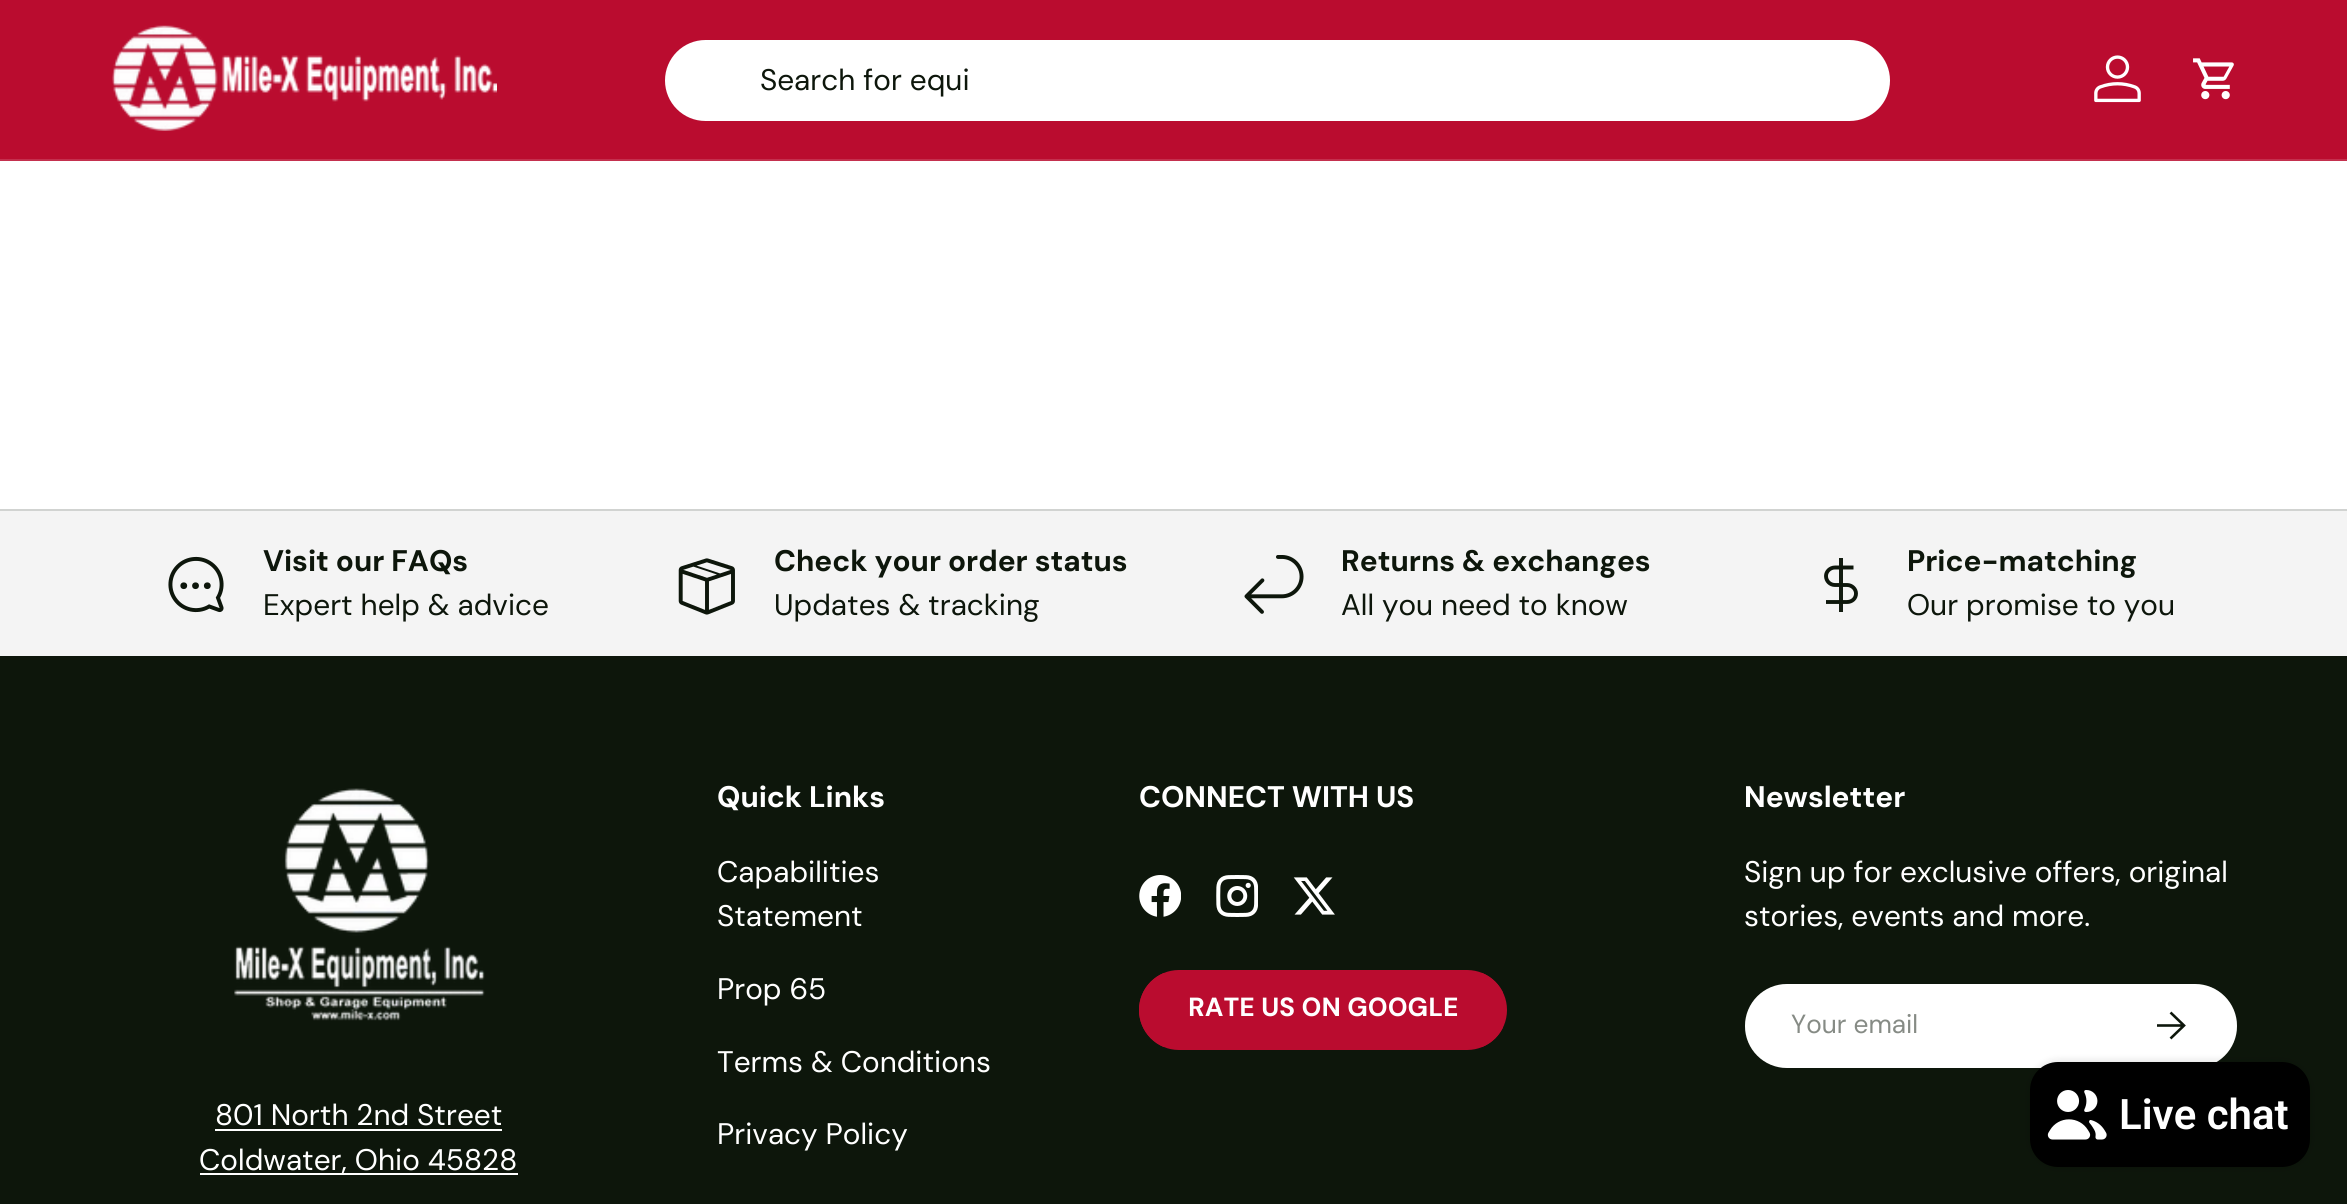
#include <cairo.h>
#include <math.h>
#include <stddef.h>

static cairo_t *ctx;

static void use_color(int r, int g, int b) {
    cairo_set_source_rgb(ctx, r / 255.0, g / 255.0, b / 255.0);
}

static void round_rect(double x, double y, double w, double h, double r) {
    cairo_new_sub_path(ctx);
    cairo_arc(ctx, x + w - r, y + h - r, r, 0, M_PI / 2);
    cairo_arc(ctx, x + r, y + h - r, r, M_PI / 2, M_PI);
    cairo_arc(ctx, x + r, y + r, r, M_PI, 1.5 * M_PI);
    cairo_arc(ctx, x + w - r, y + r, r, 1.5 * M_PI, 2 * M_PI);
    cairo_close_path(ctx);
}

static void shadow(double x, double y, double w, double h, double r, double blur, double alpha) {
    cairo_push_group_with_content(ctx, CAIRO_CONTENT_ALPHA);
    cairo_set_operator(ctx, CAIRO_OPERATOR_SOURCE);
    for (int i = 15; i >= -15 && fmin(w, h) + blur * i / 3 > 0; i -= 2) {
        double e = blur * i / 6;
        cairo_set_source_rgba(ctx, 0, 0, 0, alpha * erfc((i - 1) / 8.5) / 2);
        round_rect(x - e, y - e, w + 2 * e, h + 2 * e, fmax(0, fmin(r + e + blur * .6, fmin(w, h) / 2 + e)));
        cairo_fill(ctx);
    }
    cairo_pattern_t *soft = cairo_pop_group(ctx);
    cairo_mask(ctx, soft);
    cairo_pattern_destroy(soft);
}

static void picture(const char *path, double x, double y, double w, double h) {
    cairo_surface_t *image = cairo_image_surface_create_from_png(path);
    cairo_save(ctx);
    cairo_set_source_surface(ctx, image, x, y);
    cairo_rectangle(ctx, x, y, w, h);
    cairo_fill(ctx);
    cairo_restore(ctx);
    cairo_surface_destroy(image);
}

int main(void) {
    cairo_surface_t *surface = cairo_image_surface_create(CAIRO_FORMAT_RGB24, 2347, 1204);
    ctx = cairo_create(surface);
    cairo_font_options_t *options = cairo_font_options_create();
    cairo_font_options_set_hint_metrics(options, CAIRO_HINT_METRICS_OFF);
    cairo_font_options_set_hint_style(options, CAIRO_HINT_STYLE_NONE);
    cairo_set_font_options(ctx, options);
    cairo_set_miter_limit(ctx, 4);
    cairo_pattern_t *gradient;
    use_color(255, 255, 255);
    cairo_paint(ctx);
    use_color(186, 12, 47);
    cairo_rectangle(ctx, 0, 0, 2347, 159);
    cairo_fill(ctx);
    use_color(196, 48, 78);
    cairo_rectangle(ctx, 0, 159, 2347, 2);
    cairo_fill(ctx);
    picture("img1.png", 112, 25, 385, 106);
    use_color(255, 255, 255);
    round_rect(665, 40, 1225, 81, 40.5);
    cairo_fill(ctx);
    cairo_select_font_face(ctx, "DM Sans", CAIRO_FONT_SLANT_NORMAL, CAIRO_FONT_WEIGHT_NORMAL);
    cairo_set_font_size(ctx, 29.75);
    use_color(13, 22, 11);
    cairo_move_to(ctx, 760, 90);
    cairo_show_text(ctx, "Search for equi");
    picture("img2.png", 2094, 55, 47, 48);
    picture("img3.png", 2193, 58, 41, 42);
    use_color(244, 244, 244);
    cairo_rectangle(ctx, 0, 511, 2347, 145);
    cairo_fill(ctx);
    use_color(209, 211, 209);
    cairo_rectangle(ctx, 0, 509, 2347, 2);
    cairo_fill(ctx);
    picture("img4.png", 168, 556, 56, 57);
    cairo_select_font_face(ctx, "DM Sans", CAIRO_FONT_SLANT_NORMAL, CAIRO_FONT_WEIGHT_BOLD);
    use_color(13, 22, 11);
    cairo_move_to(ctx, 263, 571);
    cairo_show_text(ctx, "Visit our FAQs");
    cairo_select_font_face(ctx, "DM Sans", CAIRO_FONT_SLANT_NORMAL, CAIRO_FONT_WEIGHT_NORMAL);
    cairo_move_to(ctx, 263, 615);
    cairo_show_text(ctx, "Expert help & advice");
    picture("img5.png", 678, 558, 57, 57);
    cairo_select_font_face(ctx, "DM Sans", CAIRO_FONT_SLANT_NORMAL, CAIRO_FONT_WEIGHT_BOLD);
    cairo_move_to(ctx, 774, 571);
    cairo_show_text(ctx, "Check your order status");
    cairo_select_font_face(ctx, "DM Sans", CAIRO_FONT_SLANT_NORMAL, CAIRO_FONT_WEIGHT_NORMAL);
    cairo_move_to(ctx, 774, 615);
    cairo_show_text(ctx, "Updates & tracking");
    picture("img6.png", 1244, 555, 60, 59);
    cairo_select_font_face(ctx, "DM Sans", CAIRO_FONT_SLANT_NORMAL, CAIRO_FONT_WEIGHT_BOLD);
    cairo_move_to(ctx, 1341, 571);
    cairo_show_text(ctx, "Returns & exchanges");
    cairo_select_font_face(ctx, "DM Sans", CAIRO_FONT_SLANT_NORMAL, CAIRO_FONT_WEIGHT_NORMAL);
    cairo_move_to(ctx, 1341, 615);
    cairo_show_text(ctx, "All you need to know");
    use_color(19, 28, 17);
    cairo_rectangle(ctx, 1839, 558, 4, 54);
    cairo_fill(ctx);
    cairo_new_path(ctx);
    cairo_move_to(ctx, 1853.5, 567.5);
    cairo_line_to(ctx, 1835, 567.5);
    cairo_curve_to(ctx, 1830, 567.5, 1826, 571.5, 1826, 576);
    cairo_curve_to(ctx, 1826, 581, 1830, 585, 1835, 585);
    cairo_line_to(ctx, 1847, 585);
    cairo_curve_to(ctx, 1852, 585, 1856, 589, 1856, 593.5);
    cairo_curve_to(ctx, 1856, 598.5, 1852, 602, 1847, 602);
    cairo_line_to(ctx, 1826, 602);
    use_color(13, 22, 11);
    cairo_set_line_width(ctx, 3.9);
    cairo_stroke(ctx);
    cairo_select_font_face(ctx, "DM Sans", CAIRO_FONT_SLANT_NORMAL, CAIRO_FONT_WEIGHT_BOLD);
    cairo_move_to(ctx, 1907, 571);
    cairo_show_text(ctx, "Price-matching");
    cairo_select_font_face(ctx, "DM Sans", CAIRO_FONT_SLANT_NORMAL, CAIRO_FONT_WEIGHT_NORMAL);
    cairo_move_to(ctx, 1907, 615);
    cairo_show_text(ctx, "Our promise to you");
    cairo_rectangle(ctx, 0, 656, 2347, 548);
    cairo_fill(ctx);
    cairo_select_font_face(ctx, "DM Sans", CAIRO_FONT_SLANT_NORMAL, CAIRO_FONT_WEIGHT_BOLD);
    use_color(255, 255, 255);
    cairo_move_to(ctx, 717, 807);
    cairo_show_text(ctx, "Quick Links");
    cairo_select_font_face(ctx, "DM Sans", CAIRO_FONT_SLANT_NORMAL, CAIRO_FONT_WEIGHT_NORMAL);
    cairo_move_to(ctx, 717, 882);
    cairo_show_text(ctx, "Capabilities");
    cairo_move_to(ctx, 717, 926);
    cairo_show_text(ctx, "Statement");
    cairo_move_to(ctx, 717, 999);
    cairo_show_text(ctx, "Prop 65");
    cairo_move_to(ctx, 717, 1072);
    cairo_show_text(ctx, "Terms & Conditions");
    cairo_move_to(ctx, 717, 1144);
    cairo_show_text(ctx, "Privacy Policy");
    cairo_select_font_face(ctx, "DM Sans", CAIRO_FONT_SLANT_NORMAL, CAIRO_FONT_WEIGHT_BOLD);
    cairo_move_to(ctx, 1139, 807);
    cairo_show_text(ctx, "CONNECT WITH US");
    picture("img7.png", 1139, 875, 42, 42);
    picture("img8.png", 1216, 875, 42, 42);
    picture("img9.png", 1293, 877, 42, 38);
    cairo_save(ctx);
    round_rect(1139, 970, 368, 80, 40);
    cairo_clip(ctx);
    gradient = cairo_pattern_create_linear(445, 881, 1480, 1139);
    cairo_pattern_add_color_stop_rgba(gradient, 0.6, 0.808, 0.212, 0.329, 1);
    cairo_pattern_add_color_stop_rgba(gradient, 0.6, 0.729, 0.047, 0.184, 1);
    cairo_pattern_add_color_stop_rgba(gradient, 1, 0.729, 0.047, 0.184, 1);
    cairo_set_source(ctx, gradient);
    cairo_pattern_destroy(gradient);
    cairo_rectangle(ctx, 1139, 973, 364, 74);
    cairo_fill(ctx);
    cairo_restore(ctx);
    round_rect(1141, 972, 364, 76, 38);
    use_color(186, 12, 47);
    cairo_set_line_width(ctx, 4);
    cairo_stroke(ctx);
    cairo_select_font_face(ctx, "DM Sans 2", CAIRO_FONT_SLANT_NORMAL, CAIRO_FONT_WEIGHT_BOLD);
    cairo_set_font_size(ctx, 26.25);
    use_color(255, 255, 255);
    cairo_move_to(ctx, 1188, 1016);
    cairo_show_text(ctx, "RATE US ON GOOGLE");
    cairo_select_font_face(ctx, "DM Sans", CAIRO_FONT_SLANT_NORMAL, CAIRO_FONT_WEIGHT_BOLD);
    cairo_set_font_size(ctx, 29.75);
    cairo_move_to(ctx, 1744, 807);
    cairo_show_text(ctx, "Newsletter");
    cairo_select_font_face(ctx, "DM Sans", CAIRO_FONT_SLANT_NORMAL, CAIRO_FONT_WEIGHT_NORMAL);
    cairo_move_to(ctx, 1744, 882);
    cairo_show_text(ctx, "Sign up for exclusive offers, original");
    cairo_move_to(ctx, 1744, 926);
    cairo_show_text(ctx, "stories, events and more.");
    round_rect(1745, 984, 492, 84, 42);
    cairo_fill(ctx);
    round_rect(1747, 986, 488, 80, 40);
    cairo_set_source_rgba(ctx, 1, 1, 1, 0.2);
    cairo_stroke(ctx);
    cairo_select_font_face(ctx, "DM Sans 2", CAIRO_FONT_SLANT_NORMAL, CAIRO_FONT_WEIGHT_NORMAL);
    cairo_set_font_size(ctx, 26.25);
    use_color(134, 139, 133);
    cairo_move_to(ctx, 1791, 1033);
    cairo_show_text(ctx, "Your email");
    cairo_new_path(ctx);
    cairo_move_to(ctx, 2157, 1025.5);
    cairo_line_to(ctx, 2183, 1025.5);
    cairo_move_to(ctx, 2170.5, 1012.5);
    cairo_line_to(ctx, 2184, 1025.5);
    cairo_line_to(ctx, 2170.5, 1038.5);
    use_color(13, 22, 11);
    cairo_set_line_width(ctx, 2.6);
    cairo_stroke(ctx);
    picture("img10.png", 234, 788, 251, 233);
    cairo_select_font_face(ctx, "DM Sans", CAIRO_FONT_SLANT_NORMAL, CAIRO_FONT_WEIGHT_NORMAL);
    cairo_set_font_size(ctx, 29.75);
    use_color(255, 255, 255);
    cairo_move_to(ctx, 215, 1125);
    cairo_show_text(ctx, "801 North 2nd Street");
    cairo_rectangle(ctx, 215, 1129, 287, 2);
    cairo_fill(ctx);
    cairo_rectangle(ctx, 200, 1173, 318, 2);
    cairo_fill(ctx);
    cairo_move_to(ctx, 199, 1170);
    cairo_show_text(ctx, "Coldwater, Ohio 45828");
    use_color(0, 0, 0);
    shadow(2030, 1062, 280, 105, 28, 4.5, 0.15);
    use_color(0, 0, 0);
    round_rect(2030, 1062, 280, 105, 28);
    cairo_fill(ctx);
    picture("img11.png", 2047, 1090, 60, 50);
    cairo_select_font_face(ctx, "Roboto SemiBold", CAIRO_FONT_SLANT_NORMAL, CAIRO_FONT_WEIGHT_NORMAL);
    cairo_set_font_size(ctx, 42);
    use_color(255, 255, 255);
    cairo_move_to(ctx, 2119, 1129);
    cairo_show_text(ctx, "Live chat");
    cairo_surface_write_to_png(surface, "result.png");
    cairo_font_options_destroy(options);
    cairo_destroy(ctx);
    cairo_surface_destroy(surface);
    return 0;
}
